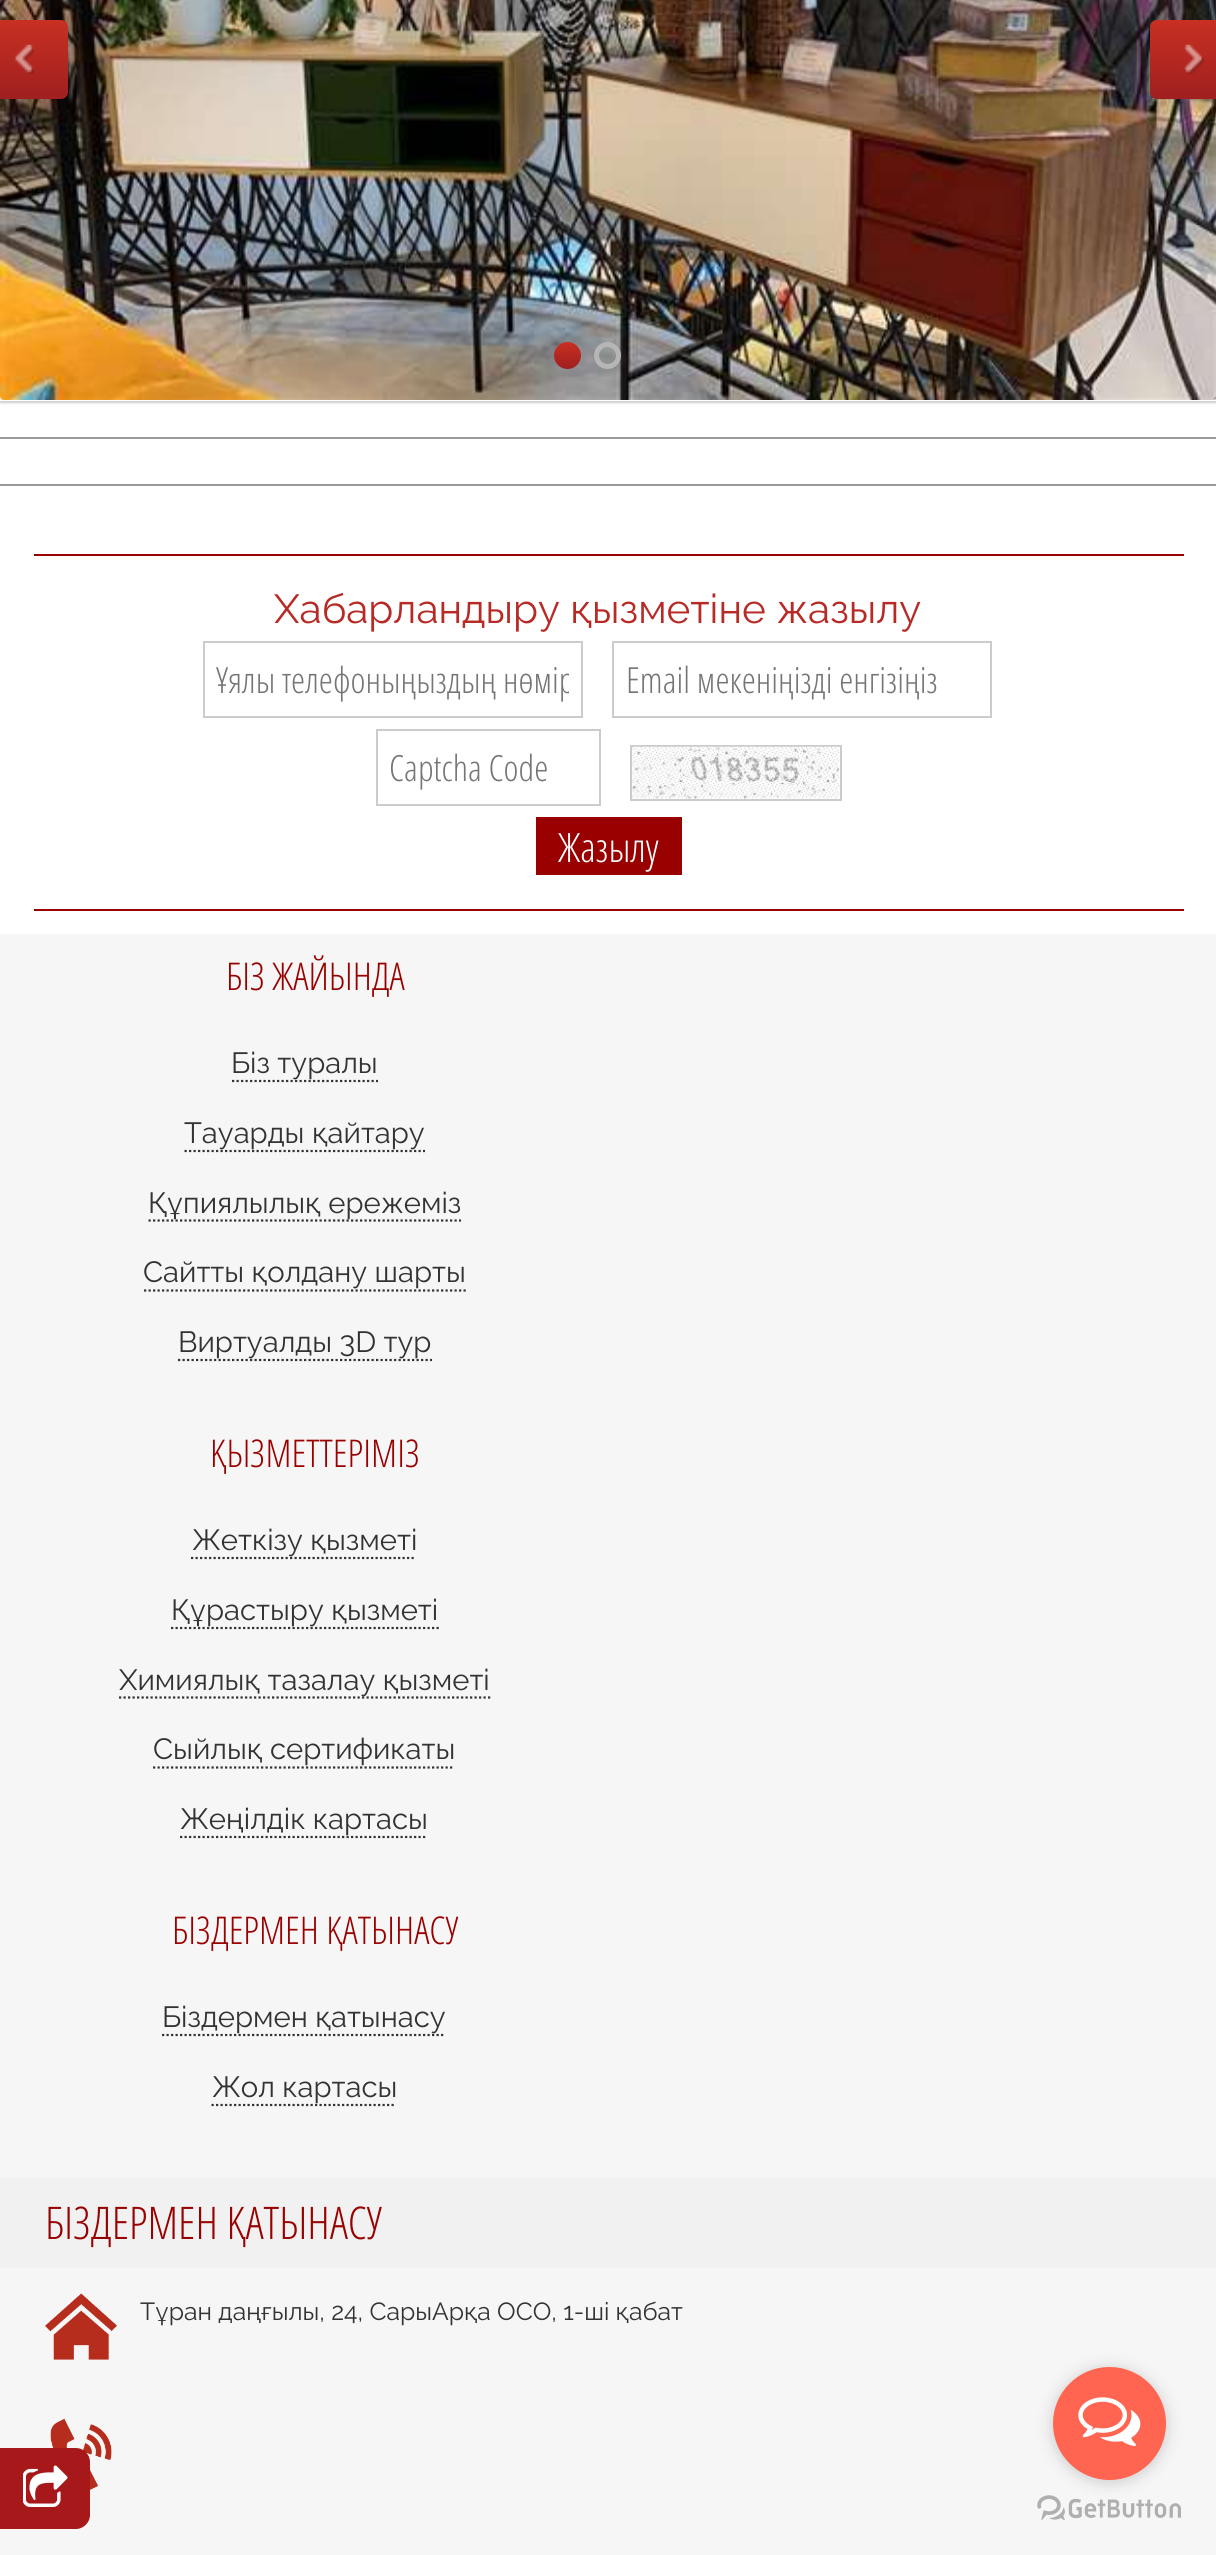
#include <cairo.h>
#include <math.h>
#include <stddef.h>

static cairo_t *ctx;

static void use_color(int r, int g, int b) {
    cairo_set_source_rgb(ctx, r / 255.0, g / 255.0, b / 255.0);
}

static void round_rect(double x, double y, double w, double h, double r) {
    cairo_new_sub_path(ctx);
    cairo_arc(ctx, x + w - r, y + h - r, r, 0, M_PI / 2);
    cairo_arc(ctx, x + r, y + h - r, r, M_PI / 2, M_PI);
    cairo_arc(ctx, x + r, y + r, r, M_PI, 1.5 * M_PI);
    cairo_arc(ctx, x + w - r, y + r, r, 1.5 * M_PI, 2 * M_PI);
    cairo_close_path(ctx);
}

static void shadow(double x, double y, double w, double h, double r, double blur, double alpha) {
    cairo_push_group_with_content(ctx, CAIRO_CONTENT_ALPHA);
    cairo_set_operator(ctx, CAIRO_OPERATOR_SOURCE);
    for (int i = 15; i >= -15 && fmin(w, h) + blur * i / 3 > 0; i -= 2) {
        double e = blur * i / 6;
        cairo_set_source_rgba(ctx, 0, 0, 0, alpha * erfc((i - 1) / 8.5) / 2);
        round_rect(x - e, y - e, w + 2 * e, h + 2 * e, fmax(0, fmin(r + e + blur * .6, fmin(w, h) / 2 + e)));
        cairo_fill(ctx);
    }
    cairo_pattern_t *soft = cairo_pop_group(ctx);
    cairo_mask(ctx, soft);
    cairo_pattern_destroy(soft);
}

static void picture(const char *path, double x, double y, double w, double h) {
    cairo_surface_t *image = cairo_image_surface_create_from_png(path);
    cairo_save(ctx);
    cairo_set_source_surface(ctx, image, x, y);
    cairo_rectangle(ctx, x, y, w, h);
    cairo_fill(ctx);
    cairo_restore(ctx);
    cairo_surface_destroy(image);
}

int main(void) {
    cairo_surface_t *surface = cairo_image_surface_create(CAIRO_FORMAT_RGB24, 1216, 2555);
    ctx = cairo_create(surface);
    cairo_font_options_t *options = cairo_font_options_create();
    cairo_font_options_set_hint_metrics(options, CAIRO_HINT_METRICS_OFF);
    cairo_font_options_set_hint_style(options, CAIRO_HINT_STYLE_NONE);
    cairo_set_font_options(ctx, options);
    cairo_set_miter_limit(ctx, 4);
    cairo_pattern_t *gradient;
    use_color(255, 255, 255);
    cairo_paint(ctx);
    use_color(0, 0, 0);
    shadow(0, -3, 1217, 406, 0, 1, 0.2);
    use_color(255, 255, 255);
    cairo_rectangle(ctx, 0, 396, 1216, 5);
    cairo_fill(ctx);
    picture("img1.png", 0, 0, 1216, 400);
    gradient = cairo_pattern_create_linear(28, 20, 28, 99);
    cairo_pattern_add_color_stop_rgba(gradient, 0, 0.784, 0.188, 0.133, 1);
    cairo_pattern_add_color_stop_rgba(gradient, 1, 0.627, 0.122, 0.125, 1);
    cairo_set_source(ctx, gradient);
    cairo_pattern_destroy(gradient);
    cairo_new_path(ctx);
    cairo_move_to(ctx, -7, 20);
    cairo_line_to(ctx, 61, 20);
    cairo_curve_to(ctx, 65, 20, 68, 23, 68, 27);
    cairo_line_to(ctx, 68, 92);
    cairo_curve_to(ctx, 68, 96, 65, 99, 61, 99);
    cairo_line_to(ctx, -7, 99);
    cairo_close_path(ctx);
    cairo_fill(ctx);
    picture("img2.png", 15, 44, 19, 30);
    gradient = cairo_pattern_create_linear(1189, 20, 1189, 99);
    cairo_pattern_add_color_stop_rgba(gradient, 0, 0.784, 0.188, 0.133, 1);
    cairo_pattern_add_color_stop_rgba(gradient, 1, 0.627, 0.122, 0.125, 1);
    cairo_set_source(ctx, gradient);
    cairo_pattern_destroy(gradient);
    cairo_new_path(ctx);
    cairo_move_to(ctx, 1157, 20);
    cairo_line_to(ctx, 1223, 20);
    cairo_line_to(ctx, 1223, 99);
    cairo_line_to(ctx, 1157, 99);
    cairo_curve_to(ctx, 1153, 99, 1150, 96, 1150, 92);
    cairo_line_to(ctx, 1150, 27);
    cairo_curve_to(ctx, 1150, 23, 1153, 20, 1157, 20);
    cairo_close_path(ctx);
    cairo_fill(ctx);
    picture("img3.png", 1183, 44, 21, 30);
    gradient = cairo_pattern_create_linear(567, 342, 567, 369);
    cairo_pattern_add_color_stop_rgba(gradient, 0, 0.784, 0.188, 0.133, 1);
    cairo_pattern_add_color_stop_rgba(gradient, 1, 0.627, 0.122, 0.125, 1);
    cairo_set_source(ctx, gradient);
    cairo_pattern_destroy(gradient);
    cairo_arc(ctx, 567.5, 355.5, 13.5, 0, 2 * M_PI);
    cairo_fill(ctx);
    cairo_arc(ctx, 607.5, 355.5, 11, 0, 2 * M_PI);
    use_color(182, 182, 182);
    cairo_set_line_width(ctx, 5);
    cairo_stroke(ctx);
    use_color(153, 153, 153);
    cairo_rectangle(ctx, 0, 437, 1216, 2);
    cairo_fill(ctx);
    cairo_rectangle(ctx, 0, 484, 1216, 2);
    cairo_fill(ctx);
    use_color(153, 0, 0);
    cairo_rectangle(ctx, 34, 554, 1150, 2);
    cairo_fill(ctx);
    cairo_rectangle(ctx, 34, 909, 1150, 2);
    cairo_fill(ctx);
    cairo_select_font_face(ctx, "Raleway", CAIRO_FONT_SLANT_NORMAL, CAIRO_FONT_WEIGHT_NORMAL);
    cairo_set_font_size(ctx, 40.5);
    use_color(183, 42, 37);
    cairo_move_to(ctx, 274, 623);
    cairo_show_text(ctx, "Хабарландыру қызметіне жазылу");
    cairo_rectangle(ctx, 204, 642, 378, 75);
    use_color(204, 204, 204);
    cairo_set_line_width(ctx, 2);
    cairo_stroke(ctx);
    cairo_save(ctx);
    cairo_rectangle(ctx, 216, 655, 353, 49);
    cairo_clip(ctx);
    cairo_select_font_face(ctx, "Open Sans Condensed Light", CAIRO_FONT_SLANT_NORMAL, CAIRO_FONT_WEIGHT_NORMAL);
    cairo_set_font_size(ctx, 36);
    use_color(117, 117, 117);
    cairo_move_to(ctx, 216, 693);
    cairo_show_text(ctx, "Ұялы телефоныңыздың нөмір");
    cairo_restore(ctx);
    cairo_rectangle(ctx, 613, 642, 378, 75);
    cairo_stroke(ctx);
    cairo_select_font_face(ctx, "Open Sans Condensed Light", CAIRO_FONT_SLANT_NORMAL, CAIRO_FONT_WEIGHT_NORMAL);
    cairo_set_font_size(ctx, 36);
    use_color(117, 117, 117);
    cairo_move_to(ctx, 626, 693);
    cairo_show_text(ctx, "Email мекеніңізді енгізіңіз");
    cairo_rectangle(ctx, 631, 746, 210, 54);
    use_color(204, 204, 204);
    cairo_stroke(ctx);
    cairo_rectangle(ctx, 377, 730, 223, 75);
    cairo_stroke(ctx);
    use_color(117, 117, 117);
    cairo_move_to(ctx, 389, 781);
    cairo_show_text(ctx, "Captcha Code");
    picture("img4.png", 632, 746, 208, 53);
    use_color(153, 0, 0);
    cairo_rectangle(ctx, 536, 817, 146, 58);
    cairo_fill(ctx);
    cairo_set_font_size(ctx, 40.5);
    use_color(255, 255, 255);
    cairo_move_to(ctx, 558, 862);
    cairo_show_text(ctx, "Жазылу");
    use_color(247, 246, 246);
    cairo_rectangle(ctx, 0, 934, 1216, 1621);
    cairo_fill(ctx);
    cairo_set_font_size(ctx, 38.25);
    use_color(153, 0, 0);
    cairo_move_to(ctx, 226, 990);
    cairo_show_text(ctx, "БІЗ ЖАЙЫНДА");
    cairo_new_path(ctx);
    cairo_move_to(ctx, 232, 1081);
    cairo_line_to(ctx, 378, 1081);
    use_color(51, 51, 51);
    cairo_set_line_width(ctx, 2.2);
    cairo_set_dash(ctx, (double[]){2.25, 2.25}, 2, 0);
    cairo_stroke(ctx);
    cairo_select_font_face(ctx, "Raleway", CAIRO_FONT_SLANT_NORMAL, CAIRO_FONT_WEIGHT_NORMAL);
    cairo_set_font_size(ctx, 29.25);
    cairo_move_to(ctx, 231, 1073);
    cairo_show_text(ctx, "Біз туралы");
    cairo_new_path(ctx);
    cairo_move_to(ctx, 184.5, 1151);
    cairo_line_to(ctx, 425, 1151);
    cairo_stroke(ctx);
    cairo_move_to(ctx, 184, 1143);
    cairo_show_text(ctx, "Тауарды қайтару");
    cairo_new_path(ctx);
    cairo_move_to(ctx, 148.5, 1220.5);
    cairo_line_to(ctx, 461, 1220.5);
    cairo_stroke(ctx);
    cairo_move_to(ctx, 148, 1213);
    cairo_show_text(ctx, "Құпиялылық ережеміз");
    cairo_move_to(ctx, 143, 1282);
    cairo_show_text(ctx, "Сайтты қолдану шарты");
    cairo_new_path(ctx);
    cairo_move_to(ctx, 144, 1290.5);
    cairo_line_to(ctx, 466, 1290.5);
    cairo_stroke(ctx);
    cairo_new_path(ctx);
    cairo_move_to(ctx, 178, 1360);
    cairo_line_to(ctx, 432, 1360);
    cairo_stroke(ctx);
    cairo_move_to(ctx, 178, 1352);
    cairo_show_text(ctx, "Виртуалды 3D тур");
    cairo_select_font_face(ctx, "Open Sans Condensed Light", CAIRO_FONT_SLANT_NORMAL, CAIRO_FONT_WEIGHT_NORMAL);
    cairo_set_font_size(ctx, 38.25);
    use_color(153, 0, 0);
    cairo_move_to(ctx, 210, 1467);
    cairo_show_text(ctx, "ҚЫЗМЕТТЕРІМІЗ");
    cairo_new_path(ctx);
    cairo_move_to(ctx, 191, 1558);
    cairo_line_to(ctx, 416, 1558);
    use_color(51, 51, 51);
    cairo_stroke(ctx);
    cairo_select_font_face(ctx, "Raleway", CAIRO_FONT_SLANT_NORMAL, CAIRO_FONT_WEIGHT_NORMAL);
    cairo_set_font_size(ctx, 29.25);
    cairo_move_to(ctx, 192, 1550);
    cairo_show_text(ctx, "Жеткізу қызметі");
    cairo_new_path(ctx);
    cairo_move_to(ctx, 171, 1628);
    cairo_line_to(ctx, 439, 1628);
    cairo_stroke(ctx);
    cairo_move_to(ctx, 171, 1620);
    cairo_show_text(ctx, "Құрастыру қызметі");
    cairo_new_path(ctx);
    cairo_move_to(ctx, 119, 1697.5);
    cairo_line_to(ctx, 490.5, 1697.5);
    cairo_stroke(ctx);
    cairo_move_to(ctx, 119, 1690);
    cairo_show_text(ctx, "Химиялық тазалау қызметі");
    cairo_move_to(ctx, 153, 1759);
    cairo_show_text(ctx, "Сыйлық сертификаты");
    cairo_new_path(ctx);
    cairo_move_to(ctx, 153, 1767.5);
    cairo_line_to(ctx, 454.5, 1767.5);
    cairo_stroke(ctx);
    cairo_new_path(ctx);
    cairo_move_to(ctx, 180, 1837);
    cairo_line_to(ctx, 427.5, 1837);
    cairo_stroke(ctx);
    cairo_move_to(ctx, 180, 1829);
    cairo_show_text(ctx, "Жеңілдік картасы");
    cairo_select_font_face(ctx, "Open Sans Condensed Light", CAIRO_FONT_SLANT_NORMAL, CAIRO_FONT_WEIGHT_NORMAL);
    cairo_set_font_size(ctx, 38.25);
    use_color(153, 0, 0);
    cairo_move_to(ctx, 172, 1944);
    cairo_show_text(ctx, "БІЗДЕРМЕН ҚАТЫНАСУ");
    cairo_new_path(ctx);
    cairo_move_to(ctx, 162, 2035);
    cairo_line_to(ctx, 445.5, 2035);
    use_color(51, 51, 51);
    cairo_stroke(ctx);
    cairo_select_font_face(ctx, "Raleway", CAIRO_FONT_SLANT_NORMAL, CAIRO_FONT_WEIGHT_NORMAL);
    cairo_set_font_size(ctx, 29.25);
    cairo_move_to(ctx, 162, 2027);
    cairo_show_text(ctx, "Біздермен қатынасу");
    cairo_new_path(ctx);
    cairo_move_to(ctx, 211.5, 2105);
    cairo_line_to(ctx, 396, 2105);
    cairo_stroke(ctx);
    cairo_move_to(ctx, 212, 2097);
    cairo_show_text(ctx, "Жол картасы");
    use_color(241, 241, 241);
    cairo_rectangle(ctx, 0, 2178, 1216, 90);
    cairo_fill(ctx);
    cairo_select_font_face(ctx, "Open Sans Condensed Light", CAIRO_FONT_SLANT_NORMAL, CAIRO_FONT_WEIGHT_NORMAL);
    cairo_set_font_size(ctx, 45);
    use_color(153, 0, 0);
    cairo_move_to(ctx, 45, 2239);
    cairo_show_text(ctx, "БІЗДЕРМЕН ҚАТЫНАСУ");
    picture("img5.png", 45, 2293, 72, 67);
    cairo_select_font_face(ctx, "Raleway", CAIRO_FONT_SLANT_NORMAL, CAIRO_FONT_WEIGHT_NORMAL);
    cairo_set_font_size(ctx, 24.75);
    use_color(51, 51, 51);
    cairo_move_to(ctx, 140, 2320);
    cairo_show_text(ctx, "Тұран даңғылы, 24, СарыАрқа ОСО, 1-ші қабат");
    picture("img6.png", 50, 2418, 62, 72);
    use_color(167, 24, 26);
    cairo_new_path(ctx);
    cairo_move_to(ctx, 0, 2448);
    cairo_line_to(ctx, 76, 2448);
    cairo_curve_to(ctx, 83.5, 2448, 90, 2454.5, 90, 2462);
    cairo_line_to(ctx, 90, 2515);
    cairo_curve_to(ctx, 90, 2522.5, 83.5, 2529, 76, 2529);
    cairo_line_to(ctx, 0, 2529);
    cairo_close_path(ctx);
    cairo_fill(ctx);
    picture("img7.png", 23, 2465, 45, 42);
    picture("img9.png", 1037, 2495, 144, 25);
    use_color(136, 136, 136);
    shadow(1053, 2369, 113, 113, 56.5, 8, 0.4);
    use_color(255, 101, 80);
    cairo_arc(ctx, 1109.5, 2423.5, 56.5, 0, 2 * M_PI);
    cairo_fill(ctx);
    picture("img8.png", 1078, 2397, 63, 50);
    cairo_surface_write_to_png(surface, "result.png");
    cairo_font_options_destroy(options);
    cairo_destroy(ctx);
    cairo_surface_destroy(surface);
    return 0;
}
